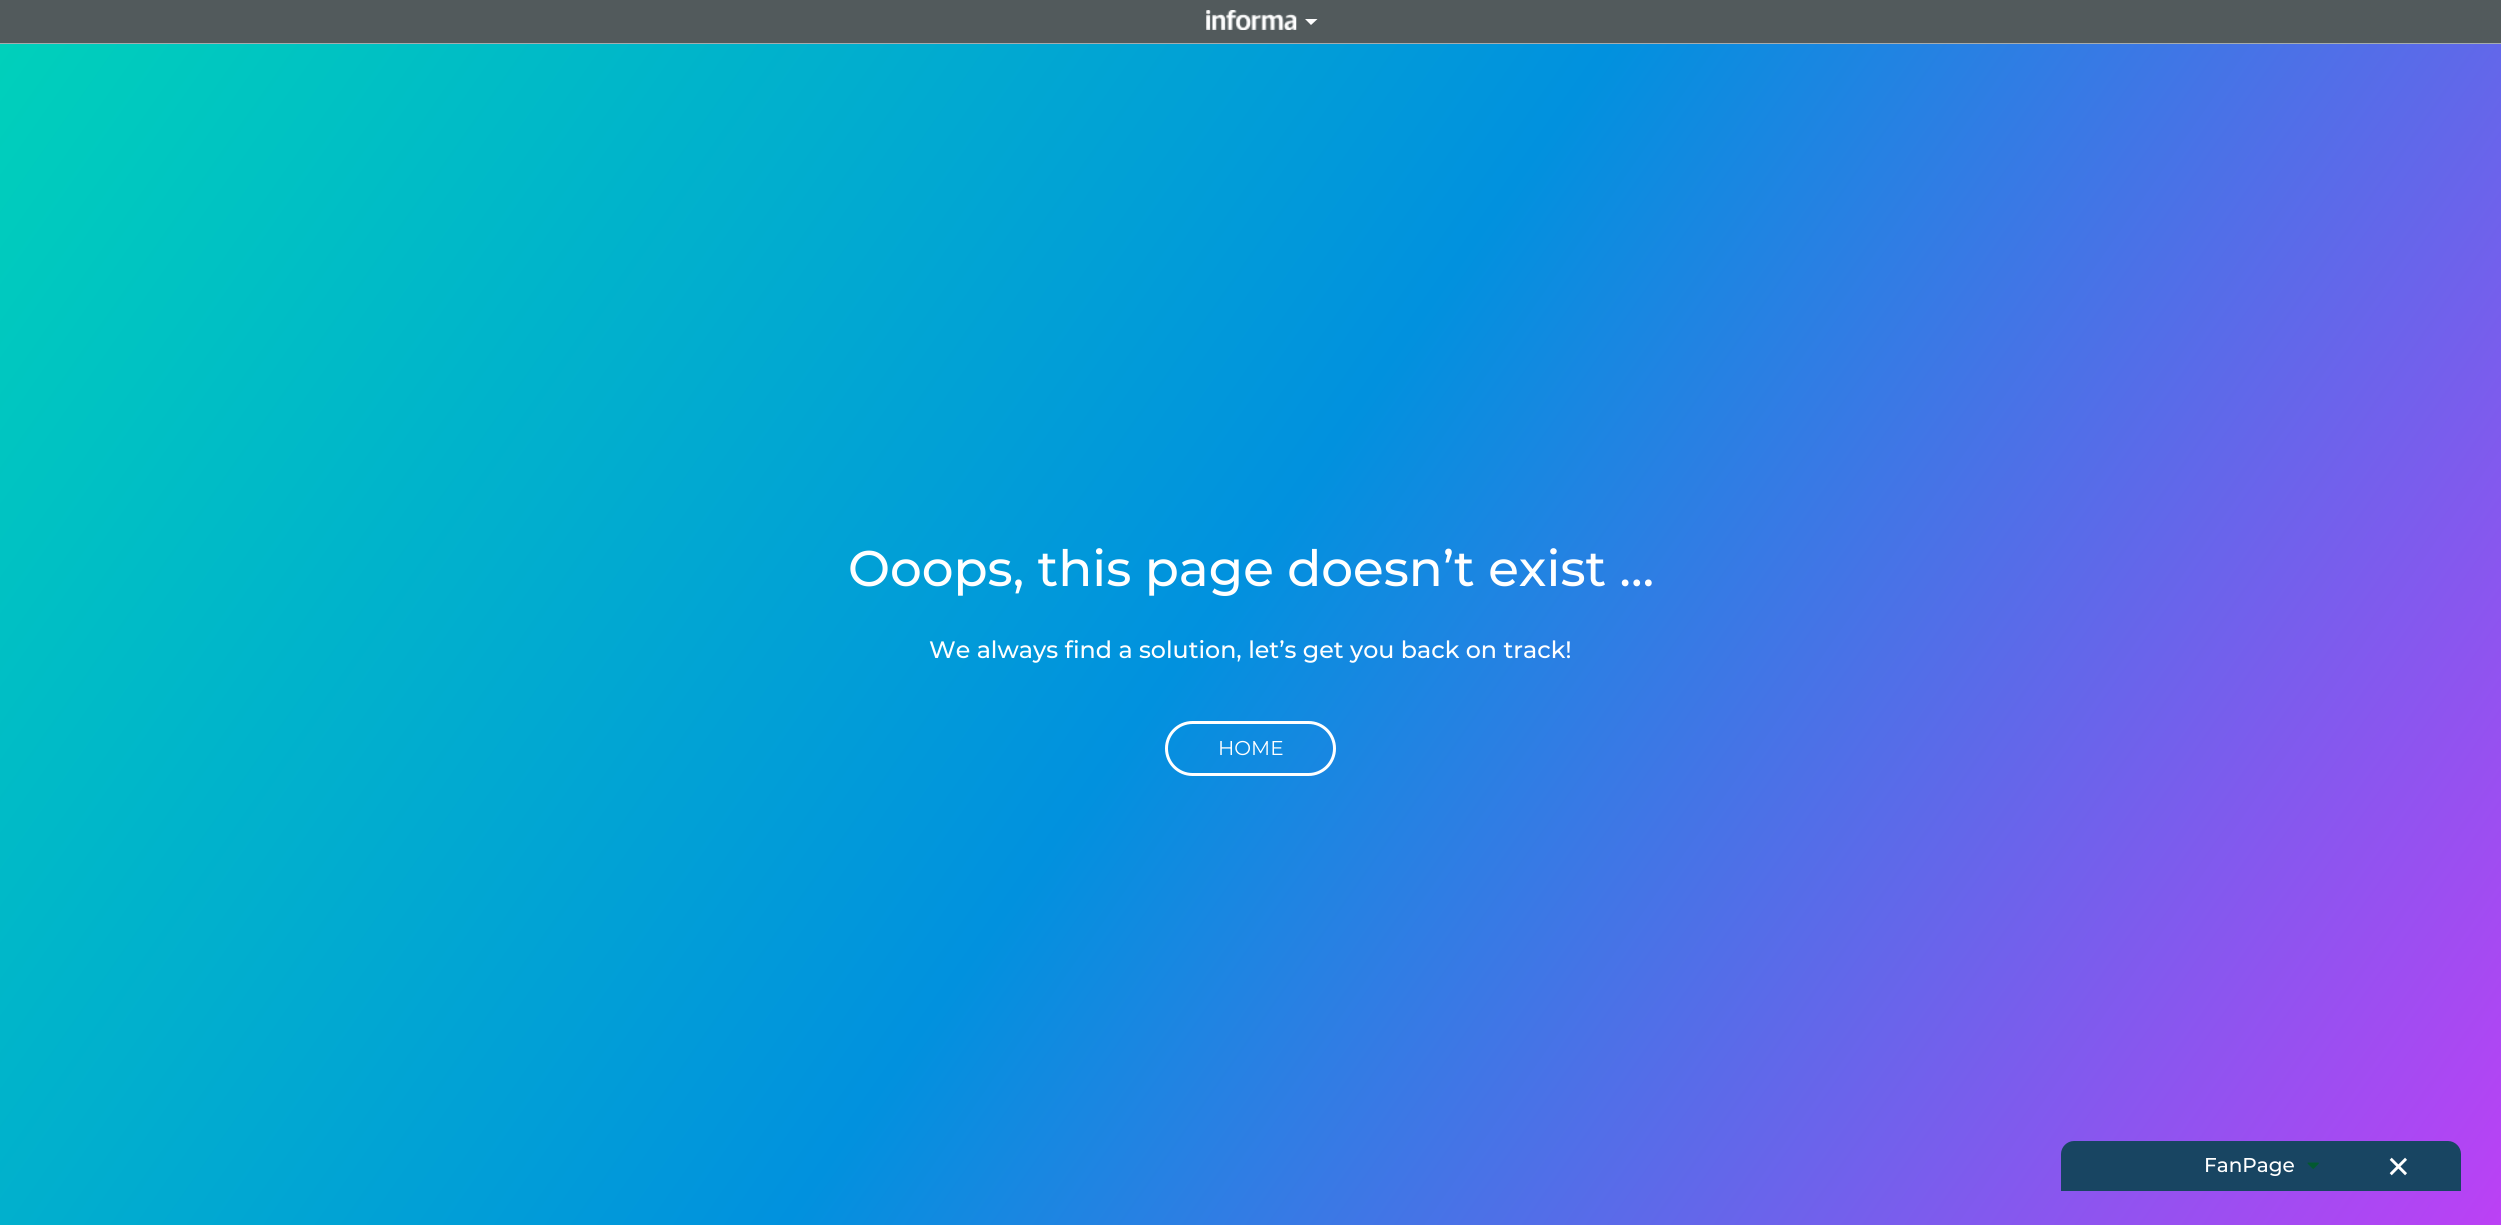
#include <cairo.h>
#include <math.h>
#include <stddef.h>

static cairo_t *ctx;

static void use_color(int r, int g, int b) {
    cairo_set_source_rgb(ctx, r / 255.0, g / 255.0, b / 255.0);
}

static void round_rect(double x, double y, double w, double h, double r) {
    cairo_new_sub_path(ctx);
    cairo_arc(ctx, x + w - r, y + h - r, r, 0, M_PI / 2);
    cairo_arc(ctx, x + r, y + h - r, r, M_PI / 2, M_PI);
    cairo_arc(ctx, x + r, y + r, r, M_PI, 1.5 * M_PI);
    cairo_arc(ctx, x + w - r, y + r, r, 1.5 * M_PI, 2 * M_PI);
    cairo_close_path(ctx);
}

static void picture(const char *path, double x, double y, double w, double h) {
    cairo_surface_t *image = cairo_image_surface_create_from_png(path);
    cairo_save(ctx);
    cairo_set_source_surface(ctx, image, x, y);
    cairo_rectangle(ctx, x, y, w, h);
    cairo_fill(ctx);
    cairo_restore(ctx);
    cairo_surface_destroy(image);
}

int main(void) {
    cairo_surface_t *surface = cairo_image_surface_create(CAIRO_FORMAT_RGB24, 2501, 1225);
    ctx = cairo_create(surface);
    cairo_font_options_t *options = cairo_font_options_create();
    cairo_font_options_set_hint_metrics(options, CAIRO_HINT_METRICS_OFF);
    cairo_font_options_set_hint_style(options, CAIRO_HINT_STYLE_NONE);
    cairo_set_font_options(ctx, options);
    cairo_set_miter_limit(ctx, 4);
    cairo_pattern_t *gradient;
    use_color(255, 255, 255);
    cairo_paint(ctx);
    use_color(82, 90, 92);
    cairo_rectangle(ctx, 0, 0, 2501, 43);
    cairo_fill(ctx);
    use_color(165, 172, 175);
    cairo_rectangle(ctx, 0, 43, 2501, 1);
    cairo_fill(ctx);
    picture("img1.png", 1206, 10, 91, 20);
    use_color(255, 255, 255);
    cairo_new_path(ctx);
    cairo_move_to(ctx, 1305, 19);
    cairo_line_to(ctx, 1317.5, 19);
    cairo_line_to(ctx, 1311, 25);
    cairo_close_path(ctx);
    cairo_fill(ctx);
    gradient = cairo_pattern_create_linear(124, -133, 2378, 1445);
    cairo_pattern_add_color_stop_rgba(gradient, 0, 0, 0.816, 0.733, 1);
    cairo_pattern_add_color_stop_rgba(gradient, 0.48, 0.004, 0.569, 0.871, 1);
    cairo_pattern_add_color_stop_rgba(gradient, 1, 0.749, 0.247, 0.961, 1);
    cairo_set_source(ctx, gradient);
    cairo_pattern_destroy(gradient);
    cairo_rectangle(ctx, 0, 44, 2501, 1181);
    cairo_fill(ctx);
    cairo_select_font_face(ctx, "Montserrat Medium", CAIRO_FONT_SLANT_NORMAL, CAIRO_FONT_WEIGHT_NORMAL);
    cairo_set_font_size(ctx, 50);
    use_color(255, 255, 255);
    cairo_move_to(ctx, 848, 586);
    cairo_show_text(ctx, "Ooops, this page doesn’t exist …");
    cairo_set_font_size(ctx, 23.75);
    cairo_move_to(ctx, 929, 658);
    cairo_show_text(ctx, "We always find a solution, let’s get you back on track!");
    round_rect(1166.5, 722.5, 168, 52, 26);
    cairo_set_line_width(ctx, 3);
    cairo_stroke(ctx);
    cairo_select_font_face(ctx, "Montserrat", CAIRO_FONT_SLANT_NORMAL, CAIRO_FONT_WEIGHT_NORMAL);
    cairo_set_font_size(ctx, 20);
    cairo_move_to(ctx, 1218, 755);
    cairo_show_text(ctx, "HOME");
    use_color(24, 69, 98);
    cairo_new_path(ctx);
    cairo_move_to(ctx, 2074, 1141);
    cairo_line_to(ctx, 2448, 1141);
    cairo_curve_to(ctx, 2455, 1141, 2461, 1147, 2461, 1154);
    cairo_line_to(ctx, 2461, 1191);
    cairo_line_to(ctx, 2061, 1191);
    cairo_line_to(ctx, 2061, 1154);
    cairo_curve_to(ctx, 2061, 1147, 2067, 1141, 2074, 1141);
    cairo_close_path(ctx);
    cairo_fill(ctx);
    cairo_select_font_face(ctx, "Montserrat Medium", CAIRO_FONT_SLANT_NORMAL, CAIRO_FONT_WEIGHT_NORMAL);
    use_color(255, 255, 255);
    cairo_move_to(ctx, 2204, 1172);
    cairo_show_text(ctx, "FanPage");
    picture("img2.png", 2307, 1162, 12, 7);
    cairo_select_font_face(ctx, "Montserrat", CAIRO_FONT_SLANT_NORMAL, CAIRO_FONT_WEIGHT_NORMAL);
    cairo_set_font_size(ctx, 50);
    cairo_move_to(ctx, 2384, 1184);
    cairo_show_text(ctx, "×");
    cairo_surface_write_to_png(surface, "result.png");
    cairo_font_options_destroy(options);
    cairo_destroy(ctx);
    cairo_surface_destroy(surface);
    return 0;
}
